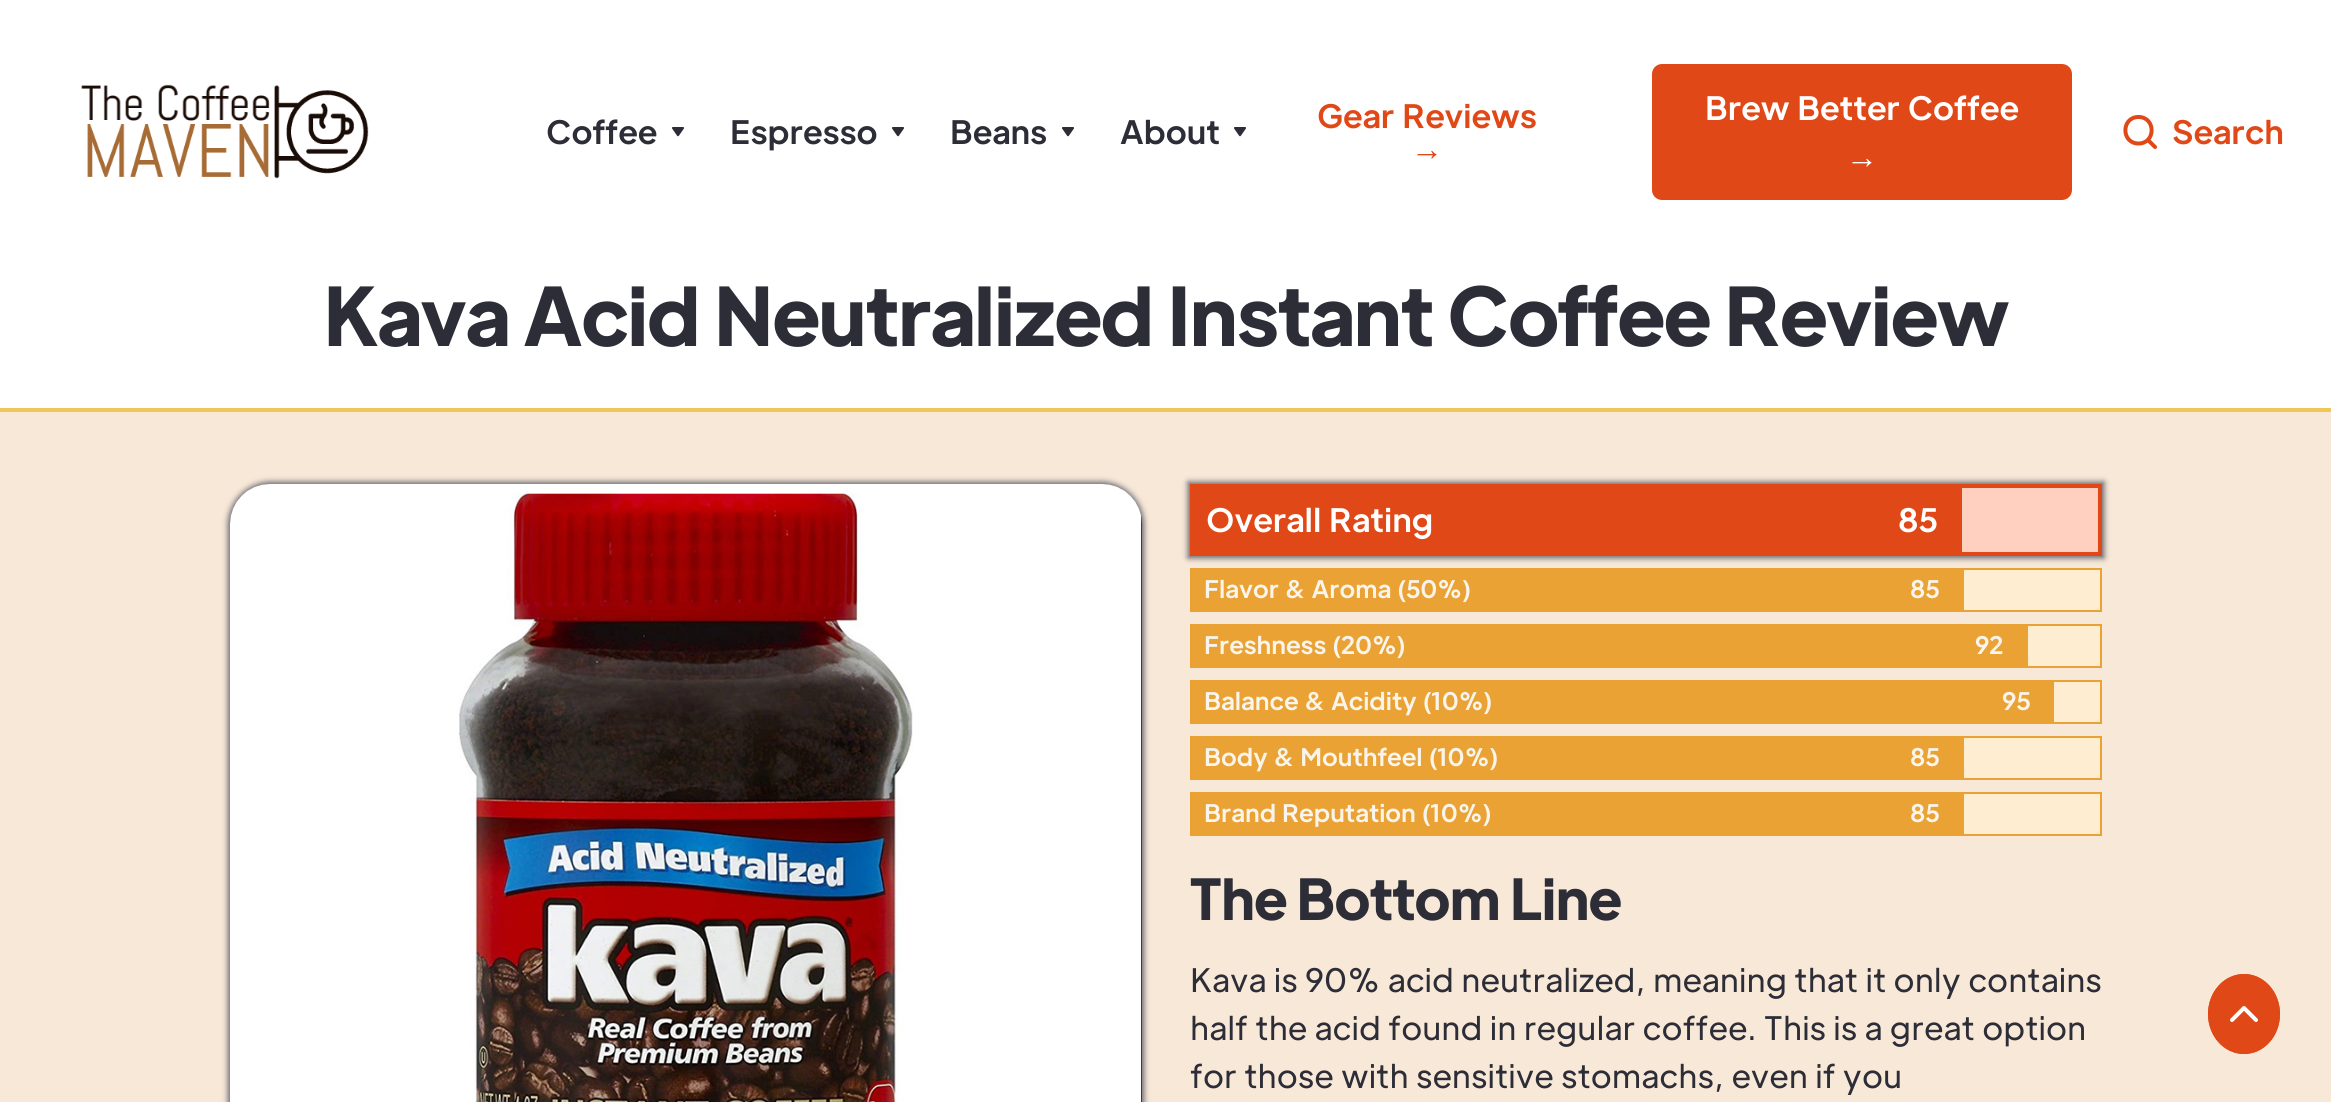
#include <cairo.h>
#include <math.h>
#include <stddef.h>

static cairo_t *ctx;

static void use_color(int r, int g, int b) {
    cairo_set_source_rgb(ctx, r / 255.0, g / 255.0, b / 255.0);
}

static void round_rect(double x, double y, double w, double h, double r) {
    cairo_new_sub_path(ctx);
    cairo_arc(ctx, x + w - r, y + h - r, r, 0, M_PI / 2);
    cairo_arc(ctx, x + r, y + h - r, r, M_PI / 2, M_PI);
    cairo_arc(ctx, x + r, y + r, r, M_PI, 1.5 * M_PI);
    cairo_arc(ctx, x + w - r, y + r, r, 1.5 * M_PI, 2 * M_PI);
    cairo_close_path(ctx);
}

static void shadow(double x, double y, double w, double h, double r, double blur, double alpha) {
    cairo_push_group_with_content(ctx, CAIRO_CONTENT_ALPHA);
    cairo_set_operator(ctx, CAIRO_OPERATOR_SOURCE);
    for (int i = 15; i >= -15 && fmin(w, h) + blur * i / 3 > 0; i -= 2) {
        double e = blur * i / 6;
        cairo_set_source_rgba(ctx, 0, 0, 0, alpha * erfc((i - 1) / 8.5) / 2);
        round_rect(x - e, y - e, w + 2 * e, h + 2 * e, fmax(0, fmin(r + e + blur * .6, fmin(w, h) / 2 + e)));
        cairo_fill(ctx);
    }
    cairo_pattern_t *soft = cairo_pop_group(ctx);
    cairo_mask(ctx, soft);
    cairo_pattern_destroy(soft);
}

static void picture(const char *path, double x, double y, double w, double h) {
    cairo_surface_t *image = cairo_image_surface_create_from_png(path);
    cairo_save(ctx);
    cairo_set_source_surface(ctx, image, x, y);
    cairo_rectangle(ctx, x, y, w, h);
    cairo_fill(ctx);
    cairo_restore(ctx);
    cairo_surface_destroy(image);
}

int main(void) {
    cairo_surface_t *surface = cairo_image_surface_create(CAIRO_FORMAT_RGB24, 2331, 1102);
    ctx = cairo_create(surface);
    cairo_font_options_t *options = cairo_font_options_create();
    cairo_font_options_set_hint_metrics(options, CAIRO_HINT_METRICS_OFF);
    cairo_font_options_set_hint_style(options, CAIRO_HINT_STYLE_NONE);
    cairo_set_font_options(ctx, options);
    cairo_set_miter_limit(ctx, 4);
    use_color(255, 255, 255);
    cairo_paint(ctx);
    picture("img1.png", 81, 84, 288, 95);
    cairo_select_font_face(ctx, "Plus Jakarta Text", CAIRO_FONT_SLANT_NORMAL, CAIRO_FONT_WEIGHT_BOLD);
    cairo_set_font_size(ctx, 32);
    use_color(44, 45, 54);
    cairo_move_to(ctx, 546, 144);
    cairo_show_text(ctx, "Coffee");
    picture("img2.png", 672, 127, 12, 10);
    cairo_move_to(ctx, 730, 144);
    cairo_show_text(ctx, "Espresso");
    picture("img2.png", 892, 127, 12, 10);
    cairo_move_to(ctx, 950, 144);
    cairo_show_text(ctx, "Beans");
    picture("img2.png", 1062, 127, 12, 10);
    cairo_move_to(ctx, 1120, 144);
    cairo_show_text(ctx, "About");
    picture("img2.png", 1234, 127, 12, 10);
    use_color(225, 72, 23);
    cairo_move_to(ctx, 1317, 128);
    cairo_show_text(ctx, "Gear Reviews");
    cairo_select_font_face(ctx, "Liberation Sans", CAIRO_FONT_SLANT_NORMAL, CAIRO_FONT_WEIGHT_BOLD);
    cairo_move_to(ctx, 1411, 160);
    cairo_show_text(ctx, "→");
    round_rect(1654, 66, 416, 132, 8);
    cairo_fill_preserve(ctx);
    cairo_set_line_width(ctx, 4);
    cairo_stroke(ctx);
    cairo_select_font_face(ctx, "Plus Jakarta Text", CAIRO_FONT_SLANT_NORMAL, CAIRO_FONT_WEIGHT_BOLD);
    use_color(255, 255, 255);
    cairo_move_to(ctx, 1705, 120);
    cairo_show_text(ctx, "Brew Better Coffee");
    cairo_select_font_face(ctx, "Liberation Sans", CAIRO_FONT_SLANT_NORMAL, CAIRO_FONT_WEIGHT_BOLD);
    cairo_move_to(ctx, 1846, 168);
    cairo_show_text(ctx, "→");
    cairo_new_path(ctx);
    cairo_move_to(ctx, 2138.5, 143.5);
    cairo_curve_to(ctx, 2156, 143.5, 2156, 117, 2138.5, 117);
    cairo_curve_to(ctx, 2121, 117, 2121, 143.5, 2138.5, 143.5);
    cairo_close_path(ctx);
    cairo_move_to(ctx, 2155, 147);
    cairo_line_to(ctx, 2148, 140);
    use_color(225, 72, 23);
    cairo_set_line_cap(ctx, CAIRO_LINE_CAP_ROUND);
    cairo_set_line_join(ctx, CAIRO_LINE_JOIN_ROUND);
    cairo_stroke(ctx);
    cairo_select_font_face(ctx, "Plus Jakarta Text", CAIRO_FONT_SLANT_NORMAL, CAIRO_FONT_WEIGHT_BOLD);
    cairo_move_to(ctx, 2172, 144);
    cairo_show_text(ctx, "Search");
    cairo_select_font_face(ctx, "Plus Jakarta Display", CAIRO_FONT_SLANT_NORMAL, CAIRO_FONT_WEIGHT_BOLD);
    cairo_set_font_size(ctx, 80);
    use_color(44, 45, 54);
    cairo_move_to(ctx, 324, 346);
    cairo_show_text(ctx, "Kava Acid Neutralized Instant Coffee Review");
    use_color(248, 232, 216);
    cairo_rectangle(ctx, 0, 412, 2331, 690);
    cairo_fill(ctx);
    use_color(241, 198, 89);
    cairo_rectangle(ctx, 0, 408, 2331, 4);
    cairo_fill(ctx);
    use_color(98, 99, 107);
    shadow(228, 482, 916, 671, 42, 3, 1);
    picture("img3.png", 230, 484, 912, 618);
    shadow(1188, 482, 916, 76, 0, 3, 1);
    use_color(255, 207, 192);
    cairo_rectangle(ctx, 1962, 488, 136, 64);
    cairo_fill(ctx);
    cairo_rectangle(ctx, 1192, 486, 908, 68);
    use_color(225, 72, 23);
    cairo_set_line_cap(ctx, CAIRO_LINE_CAP_BUTT);
    cairo_set_line_join(ctx, CAIRO_LINE_JOIN_MITER);
    cairo_stroke(ctx);
    cairo_rectangle(ctx, 1194, 488, 768, 64);
    cairo_fill(ctx);
    cairo_select_font_face(ctx, "Plus Jakarta Text", CAIRO_FONT_SLANT_NORMAL, CAIRO_FONT_WEIGHT_BOLD);
    cairo_set_font_size(ctx, 32);
    use_color(255, 255, 255);
    cairo_move_to(ctx, 1206, 532);
    cairo_show_text(ctx, "Overall Rating");
    cairo_move_to(ctx, 1898, 532);
    cairo_show_text(ctx, "85");
    use_color(255, 237, 210);
    cairo_rectangle(ctx, 1964, 570, 136, 40);
    cairo_fill(ctx);
    cairo_rectangle(ctx, 1191, 569, 910, 42);
    use_color(234, 162, 53);
    cairo_set_line_width(ctx, 2);
    cairo_stroke(ctx);
    cairo_rectangle(ctx, 1192, 570, 772, 40);
    cairo_fill(ctx);
    cairo_set_font_size(ctx, 24);
    use_color(249, 245, 236);
    cairo_move_to(ctx, 1204, 598);
    cairo_show_text(ctx, "Flavor & Aroma (50%)");
    cairo_move_to(ctx, 1910, 598);
    cairo_show_text(ctx, "85");
    use_color(255, 237, 210);
    cairo_rectangle(ctx, 2028, 626, 72, 40);
    cairo_fill(ctx);
    cairo_rectangle(ctx, 1191, 625, 910, 42);
    use_color(234, 162, 53);
    cairo_stroke(ctx);
    cairo_rectangle(ctx, 1192, 626, 836, 40);
    cairo_fill(ctx);
    use_color(249, 245, 236);
    cairo_move_to(ctx, 1204, 654);
    cairo_show_text(ctx, "Freshness (20%)");
    cairo_move_to(ctx, 1975, 654);
    cairo_show_text(ctx, "92");
    use_color(255, 237, 210);
    cairo_rectangle(ctx, 2054, 682, 46, 40);
    cairo_fill(ctx);
    cairo_rectangle(ctx, 1191, 681, 910, 42);
    use_color(234, 162, 53);
    cairo_stroke(ctx);
    cairo_rectangle(ctx, 1192, 682, 862, 40);
    cairo_fill(ctx);
    use_color(249, 245, 236);
    cairo_move_to(ctx, 1204, 710);
    cairo_show_text(ctx, "Balance & Acidity (10%)");
    cairo_move_to(ctx, 2002, 710);
    cairo_show_text(ctx, "95");
    use_color(255, 237, 210);
    cairo_rectangle(ctx, 1964, 738, 136, 40);
    cairo_fill(ctx);
    cairo_rectangle(ctx, 1191, 737, 910, 42);
    use_color(234, 162, 53);
    cairo_stroke(ctx);
    cairo_rectangle(ctx, 1192, 738, 772, 40);
    cairo_fill(ctx);
    use_color(249, 245, 236);
    cairo_move_to(ctx, 1204, 766);
    cairo_show_text(ctx, "Body & Mouthfeel (10%)");
    cairo_move_to(ctx, 1910, 766);
    cairo_show_text(ctx, "85");
    use_color(255, 237, 210);
    cairo_rectangle(ctx, 1964, 794, 136, 40);
    cairo_fill(ctx);
    cairo_rectangle(ctx, 1191, 793, 910, 42);
    use_color(234, 162, 53);
    cairo_stroke(ctx);
    cairo_rectangle(ctx, 1192, 794, 772, 40);
    cairo_fill(ctx);
    use_color(249, 245, 236);
    cairo_move_to(ctx, 1204, 822);
    cairo_show_text(ctx, "Brand Reputation (10%)");
    cairo_move_to(ctx, 1910, 822);
    cairo_show_text(ctx, "85");
    cairo_select_font_face(ctx, "Plus Jakarta Display", CAIRO_FONT_SLANT_NORMAL, CAIRO_FONT_WEIGHT_BOLD);
    cairo_set_font_size(ctx, 56);
    use_color(44, 45, 54);
    cairo_move_to(ctx, 1190, 920);
    cairo_show_text(ctx, "The Bottom Line");
    cairo_select_font_face(ctx, "Plus Jakarta Text", CAIRO_FONT_SLANT_NORMAL, CAIRO_FONT_WEIGHT_NORMAL);
    cairo_set_font_size(ctx, 32);
    cairo_move_to(ctx, 1190, 992);
    cairo_show_text(ctx, "Kava is 90% acid neutralized, meaning that it only contains");
    cairo_move_to(ctx, 1190, 1040);
    cairo_show_text(ctx, "half the acid found in regular coffee. This is a great option");
    cairo_move_to(ctx, 1190, 1088);
    cairo_show_text(ctx, "for those with sensitive stomachs, even if you");
    use_color(225, 72, 23);
    cairo_new_path(ctx);
    cairo_move_to(ctx, 2244, 974);
    cairo_curve_to(ctx, 2264, 974, 2280, 992, 2280, 1014);
    cairo_curve_to(ctx, 2280, 1036, 2264, 1054, 2244, 1054);
    cairo_curve_to(ctx, 2224, 1054, 2208, 1036, 2208, 1014);
    cairo_curve_to(ctx, 2208, 992, 2224, 974, 2244, 974);
    cairo_close_path(ctx);
    cairo_fill(ctx);
    cairo_new_path(ctx);
    cairo_move_to(ctx, 2244, 976);
    cairo_curve_to(ctx, 2263, 976, 2278, 993, 2278, 1014);
    cairo_curve_to(ctx, 2278, 1035, 2263, 1052, 2244, 1052);
    cairo_curve_to(ctx, 2225, 1052, 2210, 1035, 2210, 1014);
    cairo_curve_to(ctx, 2210, 993, 2225, 976, 2244, 976);
    cairo_close_path(ctx);
    cairo_set_line_width(ctx, 4);
    cairo_stroke(ctx);
    cairo_new_path(ctx);
    cairo_move_to(ctx, 2256, 1020);
    cairo_line_to(ctx, 2244, 1008);
    cairo_line_to(ctx, 2232, 1020);
    use_color(255, 255, 255);
    cairo_set_line_cap(ctx, CAIRO_LINE_CAP_ROUND);
    cairo_set_line_join(ctx, CAIRO_LINE_JOIN_ROUND);
    cairo_stroke(ctx);
    cairo_surface_write_to_png(surface, "result.png");
    cairo_font_options_destroy(options);
    cairo_destroy(ctx);
    cairo_surface_destroy(surface);
    return 0;
}
